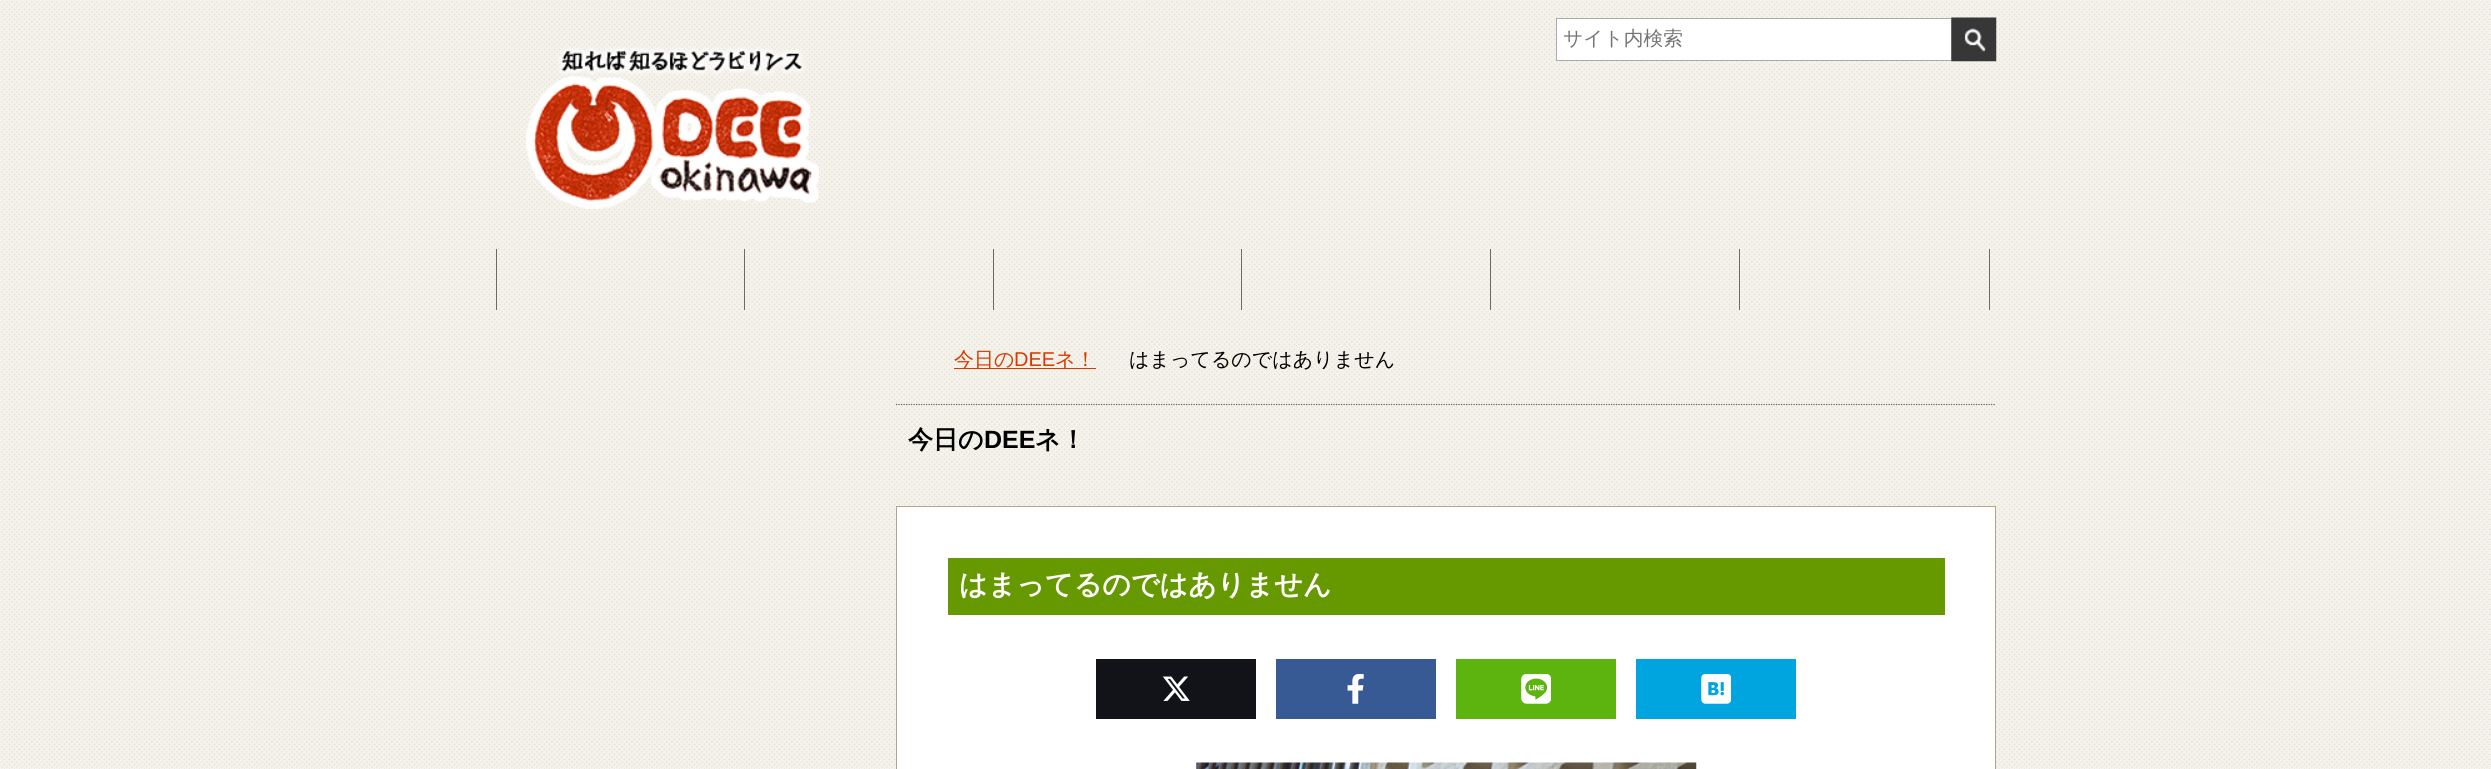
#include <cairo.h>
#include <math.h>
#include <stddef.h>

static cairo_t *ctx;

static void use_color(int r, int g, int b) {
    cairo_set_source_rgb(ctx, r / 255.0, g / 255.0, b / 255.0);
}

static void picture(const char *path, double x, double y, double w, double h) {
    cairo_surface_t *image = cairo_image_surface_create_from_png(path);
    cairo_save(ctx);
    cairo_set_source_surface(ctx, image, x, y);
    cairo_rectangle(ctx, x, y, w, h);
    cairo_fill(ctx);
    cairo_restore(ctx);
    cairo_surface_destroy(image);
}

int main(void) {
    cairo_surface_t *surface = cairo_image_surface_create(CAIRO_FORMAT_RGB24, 2491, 769);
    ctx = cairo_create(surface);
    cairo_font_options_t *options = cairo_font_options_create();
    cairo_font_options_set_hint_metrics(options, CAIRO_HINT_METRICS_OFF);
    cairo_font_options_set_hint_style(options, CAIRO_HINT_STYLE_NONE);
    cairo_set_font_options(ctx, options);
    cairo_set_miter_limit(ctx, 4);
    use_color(255, 255, 255);
    cairo_paint(ctx);
    picture("img1.png", 0, 0, 2491, 769);
    use_color(255, 255, 255);
    cairo_rectangle(ctx, 1557, 19, 394, 41);
    cairo_fill(ctx);
    use_color(170, 170, 170);
    cairo_rectangle(ctx, 1556, 18, 395, 1);
    cairo_fill(ctx);
    cairo_rectangle(ctx, 1556, 60, 395, 1);
    cairo_fill(ctx);
    cairo_rectangle(ctx, 1556, 18, 1, 43);
    cairo_fill(ctx);
    cairo_select_font_face(ctx, "WenQuanYi Zen Hei Medium", CAIRO_FONT_SLANT_NORMAL, CAIRO_FONT_WEIGHT_NORMAL);
    cairo_set_font_size(ctx, 19.75);
    use_color(117, 117, 117);
    cairo_move_to(ctx, 1563, 45);
    cairo_show_text(ctx, "サイト内検索");
    picture("img2.png", 1951, 17, 46, 45);
    picture("img3.png", 526, 46, 293, 163);
    use_color(106, 106, 106);
    cairo_rectangle(ctx, 744, 249, 1, 61);
    cairo_fill(ctx);
    cairo_rectangle(ctx, 496, 249, 1, 61);
    cairo_fill(ctx);
    cairo_rectangle(ctx, 993, 249, 1, 61);
    cairo_fill(ctx);
    cairo_rectangle(ctx, 1241, 249, 1, 61);
    cairo_fill(ctx);
    cairo_rectangle(ctx, 1490, 249, 1, 61);
    cairo_fill(ctx);
    cairo_rectangle(ctx, 1739, 249, 1, 61);
    cairo_fill(ctx);
    cairo_rectangle(ctx, 1989, 249, 1, 61);
    cairo_fill(ctx);
    use_color(216, 57, 0);
    cairo_rectangle(ctx, 954, 368, 142, 1);
    cairo_fill(ctx);
    cairo_set_font_size(ctx, 20);
    cairo_move_to(ctx, 954, 366);
    cairo_show_text(ctx, "今日の");
    cairo_select_font_face(ctx, "Liberation Sans", CAIRO_FONT_SLANT_NORMAL, CAIRO_FONT_WEIGHT_NORMAL);
    cairo_move_to(ctx, 1014, 366);
    cairo_show_text(ctx, "DEE");
    cairo_select_font_face(ctx, "WenQuanYi Zen Hei Medium", CAIRO_FONT_SLANT_NORMAL, CAIRO_FONT_WEIGHT_NORMAL);
    cairo_move_to(ctx, 1055, 366);
    cairo_show_text(ctx, "ネ！");
    use_color(0, 0, 0);
    cairo_move_to(ctx, 1129, 366);
    cairo_show_text(ctx, "はまってるのではありません");
    cairo_new_path(ctx);
    cairo_move_to(ctx, 896, 404.5);
    cairo_line_to(ctx, 1996, 404.5);
    use_color(102, 102, 102);
    cairo_set_line_width(ctx, 1.2);
    cairo_set_dash(ctx, (double[]){1.25, 1.25}, 2, 0);
    cairo_stroke(ctx);
    cairo_select_font_face(ctx, "WenQuanYi Zen Hei", CAIRO_FONT_SLANT_NORMAL, CAIRO_FONT_WEIGHT_BOLD);
    cairo_set_font_size(ctx, 25);
    use_color(0, 0, 0);
    cairo_move_to(ctx, 908, 448);
    cairo_show_text(ctx, "今日の");
    cairo_select_font_face(ctx, "Liberation Sans", CAIRO_FONT_SLANT_NORMAL, CAIRO_FONT_WEIGHT_BOLD);
    cairo_move_to(ctx, 984, 448);
    cairo_show_text(ctx, "DEE");
    cairo_select_font_face(ctx, "WenQuanYi Zen Hei", CAIRO_FONT_SLANT_NORMAL, CAIRO_FONT_WEIGHT_BOLD);
    cairo_move_to(ctx, 1035, 448);
    cairo_show_text(ctx, "ネ！");
    use_color(255, 255, 255);
    cairo_rectangle(ctx, 896.5, 506.5, 1099, 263);
    cairo_fill_preserve(ctx);
    use_color(177, 166, 139);
    cairo_set_line_width(ctx, 1);
    cairo_set_dash(ctx, NULL, 0, 0);
    cairo_stroke(ctx);
    use_color(102, 153, 0);
    cairo_rectangle(ctx, 948, 558, 997, 57);
    cairo_fill(ctx);
    cairo_set_font_size(ctx, 28);
    use_color(255, 255, 255);
    cairo_move_to(ctx, 959, 594);
    cairo_show_text(ctx, "はまってるのではありません");
    use_color(17, 19, 25);
    cairo_rectangle(ctx, 1096, 659, 160, 60);
    cairo_fill(ctx);
    picture("img4.png", 1162, 676, 28, 25);
    use_color(55, 90, 148);
    cairo_rectangle(ctx, 1276, 659, 160, 60);
    cairo_fill(ctx);
    picture("img5.png", 1347, 674, 17, 30);
    use_color(93, 180, 15);
    cairo_rectangle(ctx, 1456, 659, 160, 60);
    cairo_fill(ctx);
    picture("img6.png", 1521, 674, 30, 30);
    use_color(0, 164, 222);
    cairo_rectangle(ctx, 1636, 659, 160, 60);
    cairo_fill(ctx);
    picture("img7.png", 1701, 674, 30, 30);
    picture("img8.png", 1196, 762, 501, 7);
    cairo_surface_write_to_png(surface, "result.png");
    cairo_font_options_destroy(options);
    cairo_destroy(ctx);
    cairo_surface_destroy(surface);
    return 0;
}
